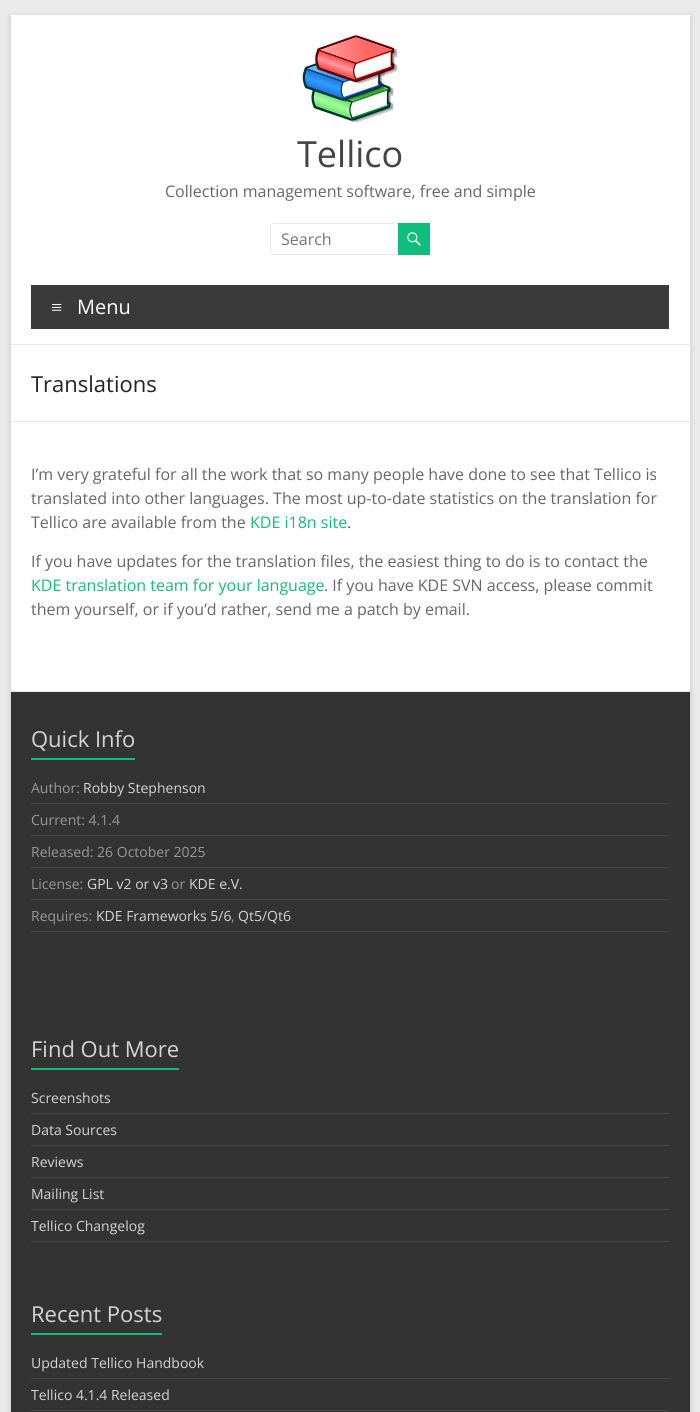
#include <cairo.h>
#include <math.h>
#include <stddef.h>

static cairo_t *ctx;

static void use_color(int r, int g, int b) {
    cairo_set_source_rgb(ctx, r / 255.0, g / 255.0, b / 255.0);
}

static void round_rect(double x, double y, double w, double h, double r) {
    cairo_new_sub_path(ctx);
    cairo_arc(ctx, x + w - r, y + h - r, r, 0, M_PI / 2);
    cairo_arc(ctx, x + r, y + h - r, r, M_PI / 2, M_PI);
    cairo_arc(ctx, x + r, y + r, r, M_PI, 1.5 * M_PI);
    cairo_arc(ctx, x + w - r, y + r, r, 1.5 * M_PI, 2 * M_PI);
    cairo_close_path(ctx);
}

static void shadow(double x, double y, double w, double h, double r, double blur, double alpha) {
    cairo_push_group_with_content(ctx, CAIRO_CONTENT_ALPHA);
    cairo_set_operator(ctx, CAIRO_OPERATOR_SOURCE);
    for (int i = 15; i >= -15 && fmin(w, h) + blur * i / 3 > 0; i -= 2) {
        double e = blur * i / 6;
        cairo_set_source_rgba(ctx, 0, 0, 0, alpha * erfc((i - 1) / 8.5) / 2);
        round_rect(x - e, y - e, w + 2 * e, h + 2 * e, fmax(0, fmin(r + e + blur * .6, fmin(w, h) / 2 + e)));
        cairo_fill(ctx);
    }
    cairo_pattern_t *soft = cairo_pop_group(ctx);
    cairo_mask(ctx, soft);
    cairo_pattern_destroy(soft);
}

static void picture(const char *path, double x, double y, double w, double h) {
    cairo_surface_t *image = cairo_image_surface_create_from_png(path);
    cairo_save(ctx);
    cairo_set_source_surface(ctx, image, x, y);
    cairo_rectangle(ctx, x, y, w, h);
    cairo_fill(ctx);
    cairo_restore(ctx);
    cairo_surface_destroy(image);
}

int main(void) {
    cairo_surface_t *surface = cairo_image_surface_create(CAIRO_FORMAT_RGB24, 700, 1412);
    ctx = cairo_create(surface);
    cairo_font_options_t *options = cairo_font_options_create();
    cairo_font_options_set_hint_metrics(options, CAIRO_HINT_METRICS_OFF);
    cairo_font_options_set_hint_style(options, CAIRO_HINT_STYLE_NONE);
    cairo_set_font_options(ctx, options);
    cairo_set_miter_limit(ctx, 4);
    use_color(234, 234, 234);
    cairo_paint(ctx);
    use_color(100, 100, 100);
    shadow(11, 17, 679, 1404, 0, 3, 0.3);
    use_color(255, 255, 255);
    cairo_rectangle(ctx, 11, 15, 679, 676);
    cairo_fill(ctx);
    use_color(234, 234, 234);
    cairo_rectangle(ctx, 11, 344, 679, 1);
    cairo_fill(ctx);
    picture("img1.png", 302, 35, 96, 88);
    cairo_select_font_face(ctx, "Open Sans", CAIRO_FONT_SLANT_NORMAL, CAIRO_FONT_WEIGHT_NORMAL);
    cairo_set_font_size(ctx, 36);
    use_color(68, 68, 68);
    cairo_move_to(ctx, 297, 167);
    cairo_show_text(ctx, "Tellico");
    cairo_set_font_size(ctx, 16);
    use_color(102, 102, 102);
    cairo_move_to(ctx, 165, 197);
    cairo_show_text(ctx, "Collection management software, free and simple");
    round_rect(270.5, 223.5, 129, 31, 2.5);
    use_color(234, 234, 234);
    cairo_set_line_width(ctx, 1);
    cairo_stroke(ctx);
    use_color(117, 117, 117);
    cairo_move_to(ctx, 281, 245);
    cairo_show_text(ctx, "Search");
    use_color(15, 190, 124);
    cairo_rectangle(ctx, 398, 223, 32, 32);
    cairo_fill(ctx);
    picture("img2.png", 407, 232, 14, 14);
    use_color(58, 58, 58);
    cairo_rectangle(ctx, 31, 285, 638, 44);
    cairo_fill(ctx);
    cairo_select_font_face(ctx, "Liberation Serif", CAIRO_FONT_SLANT_NORMAL, CAIRO_FONT_WEIGHT_NORMAL);
    cairo_set_font_size(ctx, 20);
    use_color(255, 255, 255);
    cairo_move_to(ctx, 51, 314);
    cairo_show_text(ctx, "≡");
    cairo_select_font_face(ctx, "Open Sans", CAIRO_FONT_SLANT_NORMAL, CAIRO_FONT_WEIGHT_NORMAL);
    cairo_move_to(ctx, 77, 314);
    cairo_show_text(ctx, "Menu");
    use_color(234, 234, 234);
    cairo_rectangle(ctx, 11, 421, 679, 1);
    cairo_fill(ctx);
    cairo_set_font_size(ctx, 22);
    use_color(34, 34, 34);
    cairo_move_to(ctx, 31, 392);
    cairo_show_text(ctx, "Translations");
    cairo_set_font_size(ctx, 16);
    use_color(102, 102, 102);
    cairo_move_to(ctx, 31, 480);
    cairo_show_text(ctx, "I’m very grateful for all the work that so many people have done to see that Tellico is");
    cairo_move_to(ctx, 31, 504);
    cairo_show_text(ctx, "translated into other languages. The most up-to-date statistics on the translation for");
    cairo_move_to(ctx, 31, 528);
    cairo_show_text(ctx, "Tellico are available from the");
    use_color(15, 190, 124);
    cairo_move_to(ctx, 250, 528);
    cairo_show_text(ctx, "KDE i18n site");
    use_color(102, 102, 102);
    cairo_move_to(ctx, 347, 528);
    cairo_show_text(ctx, ".");
    cairo_move_to(ctx, 31, 567);
    cairo_show_text(ctx, "If you have updates for the translation files, the easiest thing to do is to contact the");
    use_color(15, 190, 124);
    cairo_move_to(ctx, 31, 591);
    cairo_show_text(ctx, "KDE translation team for your language");
    use_color(102, 102, 102);
    cairo_move_to(ctx, 324, 591);
    cairo_show_text(ctx, ". If you have KDE SVN access, please commit");
    cairo_move_to(ctx, 31, 615);
    cairo_show_text(ctx, "them yourself, or if you’d rather, send me a patch by email.");
    use_color(51, 51, 51);
    cairo_rectangle(ctx, 11, 692, 679, 720);
    cairo_fill(ctx);
    use_color(234, 234, 234);
    cairo_rectangle(ctx, 11, 691, 679, 1);
    cairo_fill(ctx);
    cairo_set_font_size(ctx, 22);
    use_color(213, 213, 213);
    cairo_move_to(ctx, 31, 747);
    cairo_show_text(ctx, "Quick Info");
    use_color(15, 190, 124);
    cairo_rectangle(ctx, 31, 758, 104, 2);
    cairo_fill(ctx);
    use_color(68, 68, 68);
    cairo_rectangle(ctx, 31, 803, 638, 1);
    cairo_fill(ctx);
    cairo_set_font_size(ctx, 14);
    use_color(153, 153, 153);
    cairo_move_to(ctx, 31, 793);
    cairo_show_text(ctx, "Author:");
    use_color(213, 213, 213);
    cairo_move_to(ctx, 83, 793);
    cairo_show_text(ctx, "Robby Stephenson");
    use_color(68, 68, 68);
    cairo_rectangle(ctx, 31, 835, 638, 1);
    cairo_fill(ctx);
    use_color(153, 153, 153);
    cairo_move_to(ctx, 31, 825);
    cairo_show_text(ctx, "Current: 4.1.4");
    use_color(68, 68, 68);
    cairo_rectangle(ctx, 31, 867, 638, 1);
    cairo_fill(ctx);
    use_color(153, 153, 153);
    cairo_move_to(ctx, 31, 857);
    cairo_show_text(ctx, "Released: 26 October 2025");
    use_color(68, 68, 68);
    cairo_rectangle(ctx, 31, 899, 638, 1);
    cairo_fill(ctx);
    use_color(153, 153, 153);
    cairo_move_to(ctx, 31, 889);
    cairo_show_text(ctx, "License:");
    use_color(213, 213, 213);
    cairo_move_to(ctx, 87, 889);
    cairo_show_text(ctx, "GPL v2 or v3");
    use_color(153, 153, 153);
    cairo_move_to(ctx, 171, 889);
    cairo_show_text(ctx, "or");
    use_color(213, 213, 213);
    cairo_move_to(ctx, 189, 889);
    cairo_show_text(ctx, "KDE e.V.");
    use_color(68, 68, 68);
    cairo_rectangle(ctx, 31, 931, 638, 1);
    cairo_fill(ctx);
    use_color(153, 153, 153);
    cairo_move_to(ctx, 31, 921);
    cairo_show_text(ctx, "Requires:");
    use_color(213, 213, 213);
    cairo_move_to(ctx, 96, 921);
    cairo_show_text(ctx, "KDE Frameworks 5/6");
    use_color(153, 153, 153);
    cairo_move_to(ctx, 231, 921);
    cairo_show_text(ctx, ",");
    use_color(213, 213, 213);
    cairo_move_to(ctx, 238, 921);
    cairo_show_text(ctx, "Qt5/Qt6");
    cairo_set_font_size(ctx, 22);
    cairo_move_to(ctx, 31, 1057);
    cairo_show_text(ctx, "Find Out More");
    use_color(15, 190, 124);
    cairo_rectangle(ctx, 31, 1068, 148, 2);
    cairo_fill(ctx);
    use_color(68, 68, 68);
    cairo_rectangle(ctx, 31, 1113, 638, 1);
    cairo_fill(ctx);
    cairo_set_font_size(ctx, 14);
    use_color(213, 213, 213);
    cairo_move_to(ctx, 31, 1103);
    cairo_show_text(ctx, "Screenshots");
    use_color(68, 68, 68);
    cairo_rectangle(ctx, 31, 1145, 638, 1);
    cairo_fill(ctx);
    use_color(213, 213, 213);
    cairo_move_to(ctx, 31, 1135);
    cairo_show_text(ctx, "Data Sources");
    use_color(68, 68, 68);
    cairo_rectangle(ctx, 31, 1177, 638, 1);
    cairo_fill(ctx);
    use_color(213, 213, 213);
    cairo_move_to(ctx, 31, 1167);
    cairo_show_text(ctx, "Reviews");
    use_color(68, 68, 68);
    cairo_rectangle(ctx, 31, 1209, 638, 1);
    cairo_fill(ctx);
    use_color(213, 213, 213);
    cairo_move_to(ctx, 31, 1199);
    cairo_show_text(ctx, "Mailing List");
    use_color(68, 68, 68);
    cairo_rectangle(ctx, 31, 1241, 638, 1);
    cairo_fill(ctx);
    use_color(213, 213, 213);
    cairo_move_to(ctx, 31, 1231);
    cairo_show_text(ctx, "Tellico Changelog");
    cairo_set_font_size(ctx, 22);
    cairo_move_to(ctx, 31, 1322);
    cairo_show_text(ctx, "Recent Posts");
    use_color(15, 190, 124);
    cairo_rectangle(ctx, 31, 1333, 131, 2);
    cairo_fill(ctx);
    use_color(68, 68, 68);
    cairo_rectangle(ctx, 31, 1378, 638, 1);
    cairo_fill(ctx);
    cairo_set_font_size(ctx, 14);
    use_color(213, 213, 213);
    cairo_move_to(ctx, 31, 1368);
    cairo_show_text(ctx, "Updated Tellico Handbook");
    use_color(68, 68, 68);
    cairo_rectangle(ctx, 31, 1410, 638, 1);
    cairo_fill(ctx);
    use_color(213, 213, 213);
    cairo_move_to(ctx, 31, 1400);
    cairo_show_text(ctx, "Tellico 4.1.4 Released");
    cairo_surface_write_to_png(surface, "result.png");
    cairo_font_options_destroy(options);
    cairo_destroy(ctx);
    cairo_surface_destroy(surface);
    return 0;
}
